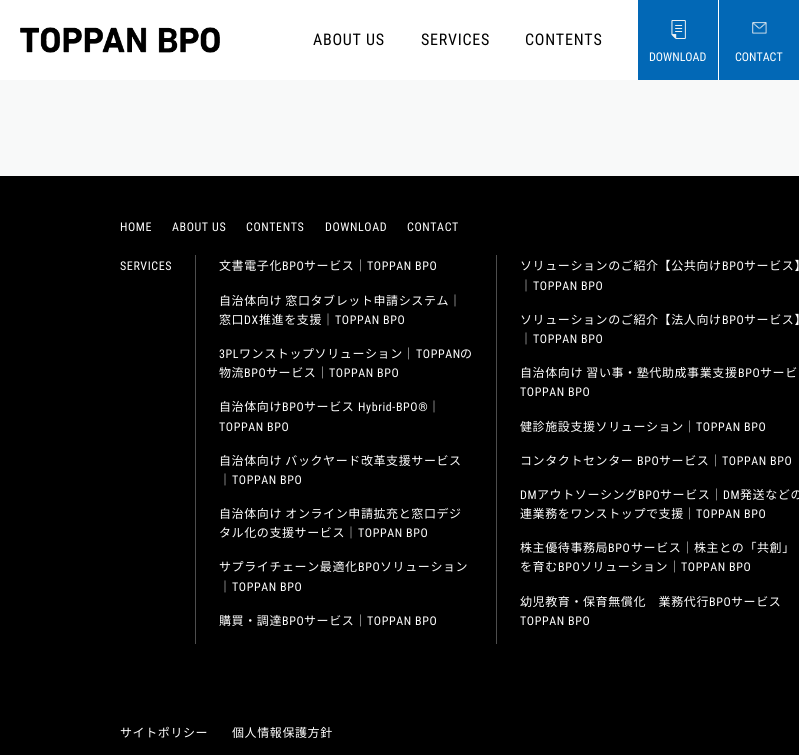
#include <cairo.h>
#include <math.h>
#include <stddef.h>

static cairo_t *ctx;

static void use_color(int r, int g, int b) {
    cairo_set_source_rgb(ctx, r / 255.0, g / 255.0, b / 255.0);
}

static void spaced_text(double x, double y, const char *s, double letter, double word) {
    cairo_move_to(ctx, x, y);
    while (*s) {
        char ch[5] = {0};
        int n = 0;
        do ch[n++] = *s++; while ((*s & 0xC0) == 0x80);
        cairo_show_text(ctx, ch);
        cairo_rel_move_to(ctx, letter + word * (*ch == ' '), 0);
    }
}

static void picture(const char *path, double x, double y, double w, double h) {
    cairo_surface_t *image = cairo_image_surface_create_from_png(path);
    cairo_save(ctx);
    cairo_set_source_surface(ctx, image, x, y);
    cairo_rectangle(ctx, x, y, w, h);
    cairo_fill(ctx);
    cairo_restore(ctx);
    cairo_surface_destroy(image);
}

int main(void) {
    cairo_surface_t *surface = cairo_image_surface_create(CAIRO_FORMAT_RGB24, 799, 755);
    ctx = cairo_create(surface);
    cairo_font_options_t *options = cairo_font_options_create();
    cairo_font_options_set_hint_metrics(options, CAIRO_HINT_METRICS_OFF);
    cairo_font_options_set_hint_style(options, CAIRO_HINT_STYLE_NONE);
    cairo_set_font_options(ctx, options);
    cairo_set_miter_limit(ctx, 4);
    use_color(248, 249, 249);
    cairo_paint(ctx);
    use_color(255, 255, 255);
    cairo_rectangle(ctx, 0, 0, 719, 80);
    cairo_fill(ctx);
    picture("img1.png", 20, 27, 200, 26);
    cairo_select_font_face(ctx, "Roboto Condensed", CAIRO_FONT_SLANT_NORMAL, CAIRO_FONT_WEIGHT_NORMAL);
    cairo_set_font_size(ctx, 16);
    use_color(0, 0, 0);
    spaced_text(313, 45, "ABOUT US", 0.75, 0);
    spaced_text(421, 45, "SERVICES", 0.75, 0);
    spaced_text(525, 45, "CONTENTS", 0.75, 0);
    use_color(2, 104, 182);
    cairo_rectangle(ctx, 638, 0, 80, 80);
    cairo_fill(ctx);
    picture("img2.png", 671, 20, 15, 19);
    cairo_set_font_size(ctx, 12);
    use_color(255, 255, 255);
    cairo_move_to(ctx, 649, 61);
    cairo_show_text(ctx, "DOWNLOAD");
    use_color(2, 104, 182);
    cairo_rectangle(ctx, 719, 0, 80, 80);
    cairo_fill(ctx);
    picture("img3.png", 752, 22, 15, 12);
    use_color(255, 255, 255);
    cairo_move_to(ctx, 735, 61);
    cairo_show_text(ctx, "CONTACT");
    use_color(0, 0, 0);
    cairo_rectangle(ctx, 0, 176, 799, 579);
    cairo_fill(ctx);
    use_color(255, 255, 255);
    spaced_text(120, 231, "HOME", 0.6, 0);
    spaced_text(172, 231, "ABOUT US", 0.6, 0);
    spaced_text(246, 231, "CONTENTS", 0.6, 0);
    spaced_text(325, 231, "DOWNLOAD", 0.6, 0);
    spaced_text(407, 231, "CONTACT", 0.6, 0);
    use_color(77, 77, 77);
    cairo_rectangle(ctx, 195, 255, 1, 389);
    cairo_fill(ctx);
    use_color(255, 255, 255);
    spaced_text(120, 270, "SERVICES", 0.6, 0);
    use_color(77, 77, 77);
    cairo_rectangle(ctx, 496, 255, 1, 389);
    cairo_fill(ctx);
    cairo_select_font_face(ctx, "Noto Sans JP", CAIRO_FONT_SLANT_NORMAL, CAIRO_FONT_WEIGHT_NORMAL);
    use_color(255, 255, 255);
    spaced_text(219, 270, "文書電子化", 0.6, 0);
    cairo_select_font_face(ctx, "Roboto Condensed", CAIRO_FONT_SLANT_NORMAL, CAIRO_FONT_WEIGHT_NORMAL);
    spaced_text(282, 270, "BPO", 0.6, 0);
    cairo_select_font_face(ctx, "Noto Sans JP", CAIRO_FONT_SLANT_NORMAL, CAIRO_FONT_WEIGHT_NORMAL);
    spaced_text(304, 270, "サービス｜", 0.6, 0);
    cairo_select_font_face(ctx, "Roboto Condensed", CAIRO_FONT_SLANT_NORMAL, CAIRO_FONT_WEIGHT_NORMAL);
    spaced_text(367, 270, "TOPPAN BPO", 0.6, 0);
    cairo_select_font_face(ctx, "Noto Sans JP", CAIRO_FONT_SLANT_NORMAL, CAIRO_FONT_WEIGHT_NORMAL);
    spaced_text(219, 305, "自治体向け 窓口タブレット申請システム｜", 0.6, 0);
    spaced_text(219, 324, "窓口", 0.6, 0);
    cairo_select_font_face(ctx, "Roboto Condensed", CAIRO_FONT_SLANT_NORMAL, CAIRO_FONT_WEIGHT_NORMAL);
    spaced_text(244, 324, "DX", 0.6, 0);
    cairo_select_font_face(ctx, "Noto Sans JP", CAIRO_FONT_SLANT_NORMAL, CAIRO_FONT_WEIGHT_NORMAL);
    spaced_text(259, 324, "推進を支援｜", 0.6, 0);
    cairo_select_font_face(ctx, "Roboto Condensed", CAIRO_FONT_SLANT_NORMAL, CAIRO_FONT_WEIGHT_NORMAL);
    spaced_text(335, 324, "TOPPAN BPO", 0.6, 0);
    spaced_text(219, 358, "3PL", 0.6, 0);
    cairo_select_font_face(ctx, "Noto Sans JP", CAIRO_FONT_SLANT_NORMAL, CAIRO_FONT_WEIGHT_NORMAL);
    spaced_text(239, 358, "ワンストップソリューション｜", 0.6, 0);
    cairo_select_font_face(ctx, "Roboto Condensed", CAIRO_FONT_SLANT_NORMAL, CAIRO_FONT_WEIGHT_NORMAL);
    spaced_text(416, 358, "TOPPAN", 0.6, 0);
    cairo_select_font_face(ctx, "Noto Sans JP", CAIRO_FONT_SLANT_NORMAL, CAIRO_FONT_WEIGHT_NORMAL);
    spaced_text(460, 358, "の", 0.6, 0);
    spaced_text(219, 377, "物流", 0.6, 0);
    cairo_select_font_face(ctx, "Roboto Condensed", CAIRO_FONT_SLANT_NORMAL, CAIRO_FONT_WEIGHT_NORMAL);
    spaced_text(244, 377, "BPO", 0.6, 0);
    cairo_select_font_face(ctx, "Noto Sans JP", CAIRO_FONT_SLANT_NORMAL, CAIRO_FONT_WEIGHT_NORMAL);
    spaced_text(266, 377, "サービス｜", 0.6, 0);
    cairo_select_font_face(ctx, "Roboto Condensed", CAIRO_FONT_SLANT_NORMAL, CAIRO_FONT_WEIGHT_NORMAL);
    spaced_text(329, 377, "TOPPAN BPO", 0.6, 0);
    cairo_select_font_face(ctx, "Noto Sans JP", CAIRO_FONT_SLANT_NORMAL, CAIRO_FONT_WEIGHT_NORMAL);
    spaced_text(219, 411, "自治体向け", 0.6, 0);
    cairo_select_font_face(ctx, "Roboto Condensed", CAIRO_FONT_SLANT_NORMAL, CAIRO_FONT_WEIGHT_NORMAL);
    spaced_text(282, 411, "BPO", 0.6, 0);
    cairo_select_font_face(ctx, "Noto Sans JP", CAIRO_FONT_SLANT_NORMAL, CAIRO_FONT_WEIGHT_NORMAL);
    spaced_text(304, 411, "サービス", 0.6, 0);
    cairo_select_font_face(ctx, "Roboto Condensed", CAIRO_FONT_SLANT_NORMAL, CAIRO_FONT_WEIGHT_NORMAL);
    spaced_text(358, 411, "Hybrid-BPO®", 0.6, 0);
    cairo_select_font_face(ctx, "Noto Sans JP", CAIRO_FONT_SLANT_NORMAL, CAIRO_FONT_WEIGHT_NORMAL);
    spaced_text(428, 411, "｜", 0.6, 0);
    cairo_select_font_face(ctx, "Roboto Condensed", CAIRO_FONT_SLANT_NORMAL, CAIRO_FONT_WEIGHT_NORMAL);
    spaced_text(219, 431, "TOPPAN BPO", 0.6, 0);
    cairo_select_font_face(ctx, "Noto Sans JP", CAIRO_FONT_SLANT_NORMAL, CAIRO_FONT_WEIGHT_NORMAL);
    spaced_text(219, 465, "自治体向け バックヤード改革支援サービス", 0.6, 0);
    spaced_text(219, 484, "｜", 0.6, 0);
    cairo_select_font_face(ctx, "Roboto Condensed", CAIRO_FONT_SLANT_NORMAL, CAIRO_FONT_WEIGHT_NORMAL);
    spaced_text(232, 484, "TOPPAN BPO", 0.6, 0);
    cairo_select_font_face(ctx, "Noto Sans JP", CAIRO_FONT_SLANT_NORMAL, CAIRO_FONT_WEIGHT_NORMAL);
    spaced_text(219, 518, "自治体向け オンライン申請拡充と窓口デジ", 0.6, 0);
    spaced_text(219, 537, "タル化の支援サービス｜", 0.6, 0);
    cairo_select_font_face(ctx, "Roboto Condensed", CAIRO_FONT_SLANT_NORMAL, CAIRO_FONT_WEIGHT_NORMAL);
    spaced_text(358, 537, "TOPPAN BPO", 0.6, 0);
    cairo_select_font_face(ctx, "Noto Sans JP", CAIRO_FONT_SLANT_NORMAL, CAIRO_FONT_WEIGHT_NORMAL);
    spaced_text(219, 571, "サプライチェーン最適化", 0.6, 0);
    cairo_select_font_face(ctx, "Roboto Condensed", CAIRO_FONT_SLANT_NORMAL, CAIRO_FONT_WEIGHT_NORMAL);
    spaced_text(358, 571, "BPO", 0.6, 0);
    cairo_select_font_face(ctx, "Noto Sans JP", CAIRO_FONT_SLANT_NORMAL, CAIRO_FONT_WEIGHT_NORMAL);
    spaced_text(380, 571, "ソリューション", 0.6, 0);
    spaced_text(219, 591, "｜", 0.6, 0);
    cairo_select_font_face(ctx, "Roboto Condensed", CAIRO_FONT_SLANT_NORMAL, CAIRO_FONT_WEIGHT_NORMAL);
    spaced_text(232, 591, "TOPPAN BPO", 0.6, 0);
    cairo_select_font_face(ctx, "Noto Sans JP", CAIRO_FONT_SLANT_NORMAL, CAIRO_FONT_WEIGHT_NORMAL);
    spaced_text(219, 625, "購買・調達", 0.6, 0);
    cairo_select_font_face(ctx, "Roboto Condensed", CAIRO_FONT_SLANT_NORMAL, CAIRO_FONT_WEIGHT_NORMAL);
    spaced_text(282, 625, "BPO", 0.6, 0);
    cairo_select_font_face(ctx, "Noto Sans JP", CAIRO_FONT_SLANT_NORMAL, CAIRO_FONT_WEIGHT_NORMAL);
    spaced_text(304, 625, "サービス｜", 0.6, 0);
    cairo_select_font_face(ctx, "Roboto Condensed", CAIRO_FONT_SLANT_NORMAL, CAIRO_FONT_WEIGHT_NORMAL);
    spaced_text(367, 625, "TOPPAN BPO", 0.6, 0);
    cairo_select_font_face(ctx, "Noto Sans JP", CAIRO_FONT_SLANT_NORMAL, CAIRO_FONT_WEIGHT_NORMAL);
    spaced_text(520, 270, "ソリューションのご紹介【公共向け", 0.6, 0);
    cairo_select_font_face(ctx, "Roboto Condensed", CAIRO_FONT_SLANT_NORMAL, CAIRO_FONT_WEIGHT_NORMAL);
    spaced_text(722, 270, "BPO", 0.6, 0);
    cairo_select_font_face(ctx, "Noto Sans JP", CAIRO_FONT_SLANT_NORMAL, CAIRO_FONT_WEIGHT_NORMAL);
    spaced_text(744, 270, "サービス】", 0.6, 0);
    spaced_text(520, 290, "｜", 0.6, 0);
    cairo_select_font_face(ctx, "Roboto Condensed", CAIRO_FONT_SLANT_NORMAL, CAIRO_FONT_WEIGHT_NORMAL);
    spaced_text(533, 290, "TOPPAN BPO", 0.6, 0);
    cairo_select_font_face(ctx, "Noto Sans JP", CAIRO_FONT_SLANT_NORMAL, CAIRO_FONT_WEIGHT_NORMAL);
    spaced_text(520, 324, "ソリューションのご紹介【法人向け", 0.6, 0);
    cairo_select_font_face(ctx, "Roboto Condensed", CAIRO_FONT_SLANT_NORMAL, CAIRO_FONT_WEIGHT_NORMAL);
    spaced_text(722, 324, "BPO", 0.6, 0);
    cairo_select_font_face(ctx, "Noto Sans JP", CAIRO_FONT_SLANT_NORMAL, CAIRO_FONT_WEIGHT_NORMAL);
    spaced_text(744, 324, "サービス】", 0.6, 0);
    spaced_text(520, 343, "｜", 0.6, 0);
    cairo_select_font_face(ctx, "Roboto Condensed", CAIRO_FONT_SLANT_NORMAL, CAIRO_FONT_WEIGHT_NORMAL);
    spaced_text(533, 343, "TOPPAN BPO", 0.6, 0);
    cairo_select_font_face(ctx, "Noto Sans JP", CAIRO_FONT_SLANT_NORMAL, CAIRO_FONT_WEIGHT_NORMAL);
    spaced_text(520, 377, "自治体向け 習い事・塾代助成事業支援", 0.6, 0);
    cairo_select_font_face(ctx, "Roboto Condensed", CAIRO_FONT_SLANT_NORMAL, CAIRO_FONT_WEIGHT_NORMAL);
    spaced_text(738, 377, "BPO", 0.6, 0);
    cairo_select_font_face(ctx, "Noto Sans JP", CAIRO_FONT_SLANT_NORMAL, CAIRO_FONT_WEIGHT_NORMAL);
    spaced_text(760, 377, "サービ", 0.6, 0);
    cairo_select_font_face(ctx, "Roboto Condensed", CAIRO_FONT_SLANT_NORMAL, CAIRO_FONT_WEIGHT_NORMAL);
    spaced_text(520, 396, "TOPPAN BPO", 0.6, 0);
    cairo_select_font_face(ctx, "Noto Sans JP", CAIRO_FONT_SLANT_NORMAL, CAIRO_FONT_WEIGHT_NORMAL);
    spaced_text(520, 431, "健診施設支援ソリューション｜", 0.6, 0);
    cairo_select_font_face(ctx, "Roboto Condensed", CAIRO_FONT_SLANT_NORMAL, CAIRO_FONT_WEIGHT_NORMAL);
    spaced_text(696, 431, "TOPPAN BPO", 0.6, 0);
    cairo_select_font_face(ctx, "Noto Sans JP", CAIRO_FONT_SLANT_NORMAL, CAIRO_FONT_WEIGHT_NORMAL);
    spaced_text(520, 465, "コンタクトセンター", 0.6, 0);
    cairo_select_font_face(ctx, "Roboto Condensed", CAIRO_FONT_SLANT_NORMAL, CAIRO_FONT_WEIGHT_NORMAL);
    spaced_text(637, 465, "BPO", 0.6, 0);
    cairo_select_font_face(ctx, "Noto Sans JP", CAIRO_FONT_SLANT_NORMAL, CAIRO_FONT_WEIGHT_NORMAL);
    spaced_text(659, 465, "サービス｜", 0.6, 0);
    cairo_select_font_face(ctx, "Roboto Condensed", CAIRO_FONT_SLANT_NORMAL, CAIRO_FONT_WEIGHT_NORMAL);
    spaced_text(722, 465, "TOPPAN BPO", 0.6, 0);
    spaced_text(520, 499, "DM", 0.6, 0);
    cairo_select_font_face(ctx, "Noto Sans JP", CAIRO_FONT_SLANT_NORMAL, CAIRO_FONT_WEIGHT_NORMAL);
    spaced_text(537, 499, "アウトソーシング", 0.6, 0);
    cairo_select_font_face(ctx, "Roboto Condensed", CAIRO_FONT_SLANT_NORMAL, CAIRO_FONT_WEIGHT_NORMAL);
    spaced_text(638, 499, "BPO", 0.6, 0);
    cairo_select_font_face(ctx, "Noto Sans JP", CAIRO_FONT_SLANT_NORMAL, CAIRO_FONT_WEIGHT_NORMAL);
    spaced_text(660, 499, "サービス｜", 0.6, 0);
    cairo_select_font_face(ctx, "Roboto Condensed", CAIRO_FONT_SLANT_NORMAL, CAIRO_FONT_WEIGHT_NORMAL);
    spaced_text(723, 499, "DM", 0.6, 0);
    cairo_select_font_face(ctx, "Noto Sans JP", CAIRO_FONT_SLANT_NORMAL, CAIRO_FONT_WEIGHT_NORMAL);
    spaced_text(740, 499, "発送などの", 0.6, 0);
    spaced_text(520, 518, "連業務をワンストップで支援｜", 0.6, 0);
    cairo_select_font_face(ctx, "Roboto Condensed", CAIRO_FONT_SLANT_NORMAL, CAIRO_FONT_WEIGHT_NORMAL);
    spaced_text(696, 518, "TOPPAN BPO", 0.6, 0);
    cairo_select_font_face(ctx, "Noto Sans JP", CAIRO_FONT_SLANT_NORMAL, CAIRO_FONT_WEIGHT_NORMAL);
    spaced_text(520, 552, "株主優待事務局", 0.6, 0);
    cairo_select_font_face(ctx, "Roboto Condensed", CAIRO_FONT_SLANT_NORMAL, CAIRO_FONT_WEIGHT_NORMAL);
    spaced_text(608, 552, "BPO", 0.6, 0);
    cairo_select_font_face(ctx, "Noto Sans JP", CAIRO_FONT_SLANT_NORMAL, CAIRO_FONT_WEIGHT_NORMAL);
    spaced_text(631, 552, "サービス｜株主との「共創」", 0.6, 0);
    spaced_text(520, 571, "を育む", 0.6, 0);
    cairo_select_font_face(ctx, "Roboto Condensed", CAIRO_FONT_SLANT_NORMAL, CAIRO_FONT_WEIGHT_NORMAL);
    spaced_text(558, 571, "BPO", 0.6, 0);
    cairo_select_font_face(ctx, "Noto Sans JP", CAIRO_FONT_SLANT_NORMAL, CAIRO_FONT_WEIGHT_NORMAL);
    spaced_text(580, 571, "ソリューション｜", 0.6, 0);
    cairo_select_font_face(ctx, "Roboto Condensed", CAIRO_FONT_SLANT_NORMAL, CAIRO_FONT_WEIGHT_NORMAL);
    spaced_text(681, 571, "TOPPAN BPO", 0.6, 0);
    cairo_select_font_face(ctx, "Noto Sans JP", CAIRO_FONT_SLANT_NORMAL, CAIRO_FONT_WEIGHT_NORMAL);
    spaced_text(520, 606, "幼児教育・保育無償化　業務代行", 0.6, 0);
    cairo_select_font_face(ctx, "Roboto Condensed", CAIRO_FONT_SLANT_NORMAL, CAIRO_FONT_WEIGHT_NORMAL);
    spaced_text(709, 606, "BPO", 0.6, 0);
    cairo_select_font_face(ctx, "Noto Sans JP", CAIRO_FONT_SLANT_NORMAL, CAIRO_FONT_WEIGHT_NORMAL);
    spaced_text(731, 606, "サービス", 0.6, 0);
    cairo_select_font_face(ctx, "Roboto Condensed", CAIRO_FONT_SLANT_NORMAL, CAIRO_FONT_WEIGHT_NORMAL);
    spaced_text(520, 625, "TOPPAN BPO", 0.6, 0);
    cairo_select_font_face(ctx, "Noto Sans JP", CAIRO_FONT_SLANT_NORMAL, CAIRO_FONT_WEIGHT_NORMAL);
    spaced_text(120, 737, "サイトポリシー", 0.6, 0);
    spaced_text(232, 737, "個人情報保護方針", 0.6, 0);
    cairo_surface_write_to_png(surface, "result.png");
    cairo_font_options_destroy(options);
    cairo_destroy(ctx);
    cairo_surface_destroy(surface);
    return 0;
}
